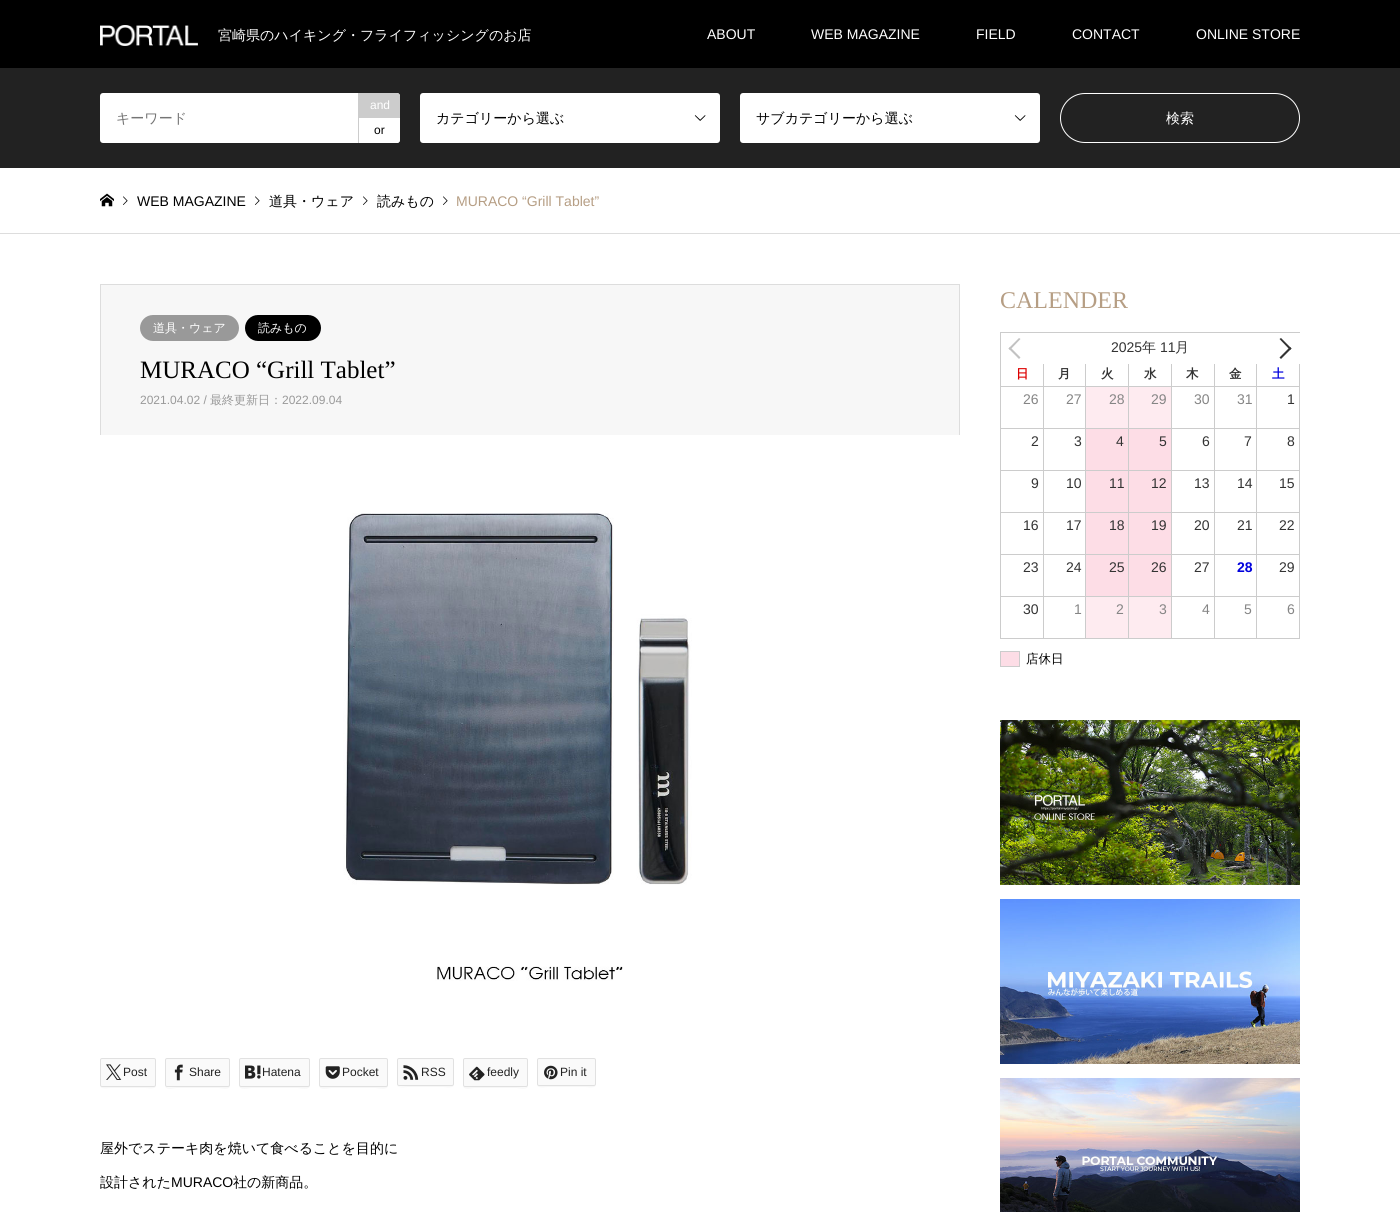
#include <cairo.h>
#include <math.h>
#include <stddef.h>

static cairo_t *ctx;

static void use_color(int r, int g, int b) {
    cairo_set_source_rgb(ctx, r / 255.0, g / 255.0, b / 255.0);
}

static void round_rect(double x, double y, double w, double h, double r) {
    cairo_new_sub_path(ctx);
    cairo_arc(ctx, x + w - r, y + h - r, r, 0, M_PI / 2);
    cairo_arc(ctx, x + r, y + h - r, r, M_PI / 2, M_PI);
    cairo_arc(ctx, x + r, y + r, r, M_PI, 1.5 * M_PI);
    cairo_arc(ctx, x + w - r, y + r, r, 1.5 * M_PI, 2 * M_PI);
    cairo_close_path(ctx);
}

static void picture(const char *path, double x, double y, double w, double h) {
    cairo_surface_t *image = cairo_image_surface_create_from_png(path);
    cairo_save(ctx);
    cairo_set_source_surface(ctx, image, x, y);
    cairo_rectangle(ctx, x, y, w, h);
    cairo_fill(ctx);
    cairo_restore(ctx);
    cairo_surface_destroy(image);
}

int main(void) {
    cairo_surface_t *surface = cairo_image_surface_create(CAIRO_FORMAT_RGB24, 1400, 1212);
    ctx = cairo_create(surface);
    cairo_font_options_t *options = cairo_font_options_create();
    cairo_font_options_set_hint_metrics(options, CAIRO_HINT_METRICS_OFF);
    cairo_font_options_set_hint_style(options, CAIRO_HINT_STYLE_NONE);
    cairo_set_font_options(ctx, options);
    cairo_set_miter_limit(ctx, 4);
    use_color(255, 255, 255);
    cairo_paint(ctx);
    use_color(0, 0, 0);
    cairo_rectangle(ctx, 0, 0, 1400, 68);
    cairo_fill(ctx);
    picture("img1.png", 100, 25, 98, 21);
    cairo_select_font_face(ctx, "WenQuanYi Zen Hei Medium", CAIRO_FONT_SLANT_NORMAL, CAIRO_FONT_WEIGHT_NORMAL);
    cairo_set_font_size(ctx, 14);
    use_color(255, 255, 255);
    cairo_move_to(ctx, 218, 40);
    cairo_show_text(ctx, "宮崎県のハイキング・フライフィッシングのお店");
    cairo_select_font_face(ctx, "Liberation Sans", CAIRO_FONT_SLANT_NORMAL, CAIRO_FONT_WEIGHT_NORMAL);
    cairo_move_to(ctx, 707, 39);
    cairo_show_text(ctx, "ABOUT");
    cairo_move_to(ctx, 811, 39);
    cairo_show_text(ctx, "WEB MAGAZINE");
    cairo_move_to(ctx, 976, 39);
    cairo_show_text(ctx, "FIELD");
    cairo_move_to(ctx, 1072, 39);
    cairo_show_text(ctx, "CONTACT");
    cairo_move_to(ctx, 1196, 39);
    cairo_show_text(ctx, "ONLINE STORE");
    use_color(34, 34, 34);
    cairo_rectangle(ctx, 0, 68, 1400, 100);
    cairo_fill(ctx);
    use_color(255, 255, 255);
    round_rect(100, 93, 300, 50, 3);
    cairo_fill(ctx);
    cairo_select_font_face(ctx, "WenQuanYi Zen Hei Medium", CAIRO_FONT_SLANT_NORMAL, CAIRO_FONT_WEIGHT_NORMAL);
    use_color(117, 117, 117);
    cairo_move_to(ctx, 116, 123);
    cairo_show_text(ctx, "キーワード");
    use_color(204, 204, 204);
    cairo_new_path(ctx);
    cairo_move_to(ctx, 358, 93);
    cairo_line_to(ctx, 397, 93);
    cairo_curve_to(ctx, 398.5, 93, 400, 94.5, 400, 96);
    cairo_line_to(ctx, 400, 118);
    cairo_line_to(ctx, 358, 118);
    cairo_close_path(ctx);
    cairo_fill(ctx);
    cairo_select_font_face(ctx, "Liberation Sans", CAIRO_FONT_SLANT_NORMAL, CAIRO_FONT_WEIGHT_NORMAL);
    cairo_set_font_size(ctx, 12);
    use_color(255, 255, 255);
    cairo_move_to(ctx, 370, 109);
    cairo_show_text(ctx, "and");
    cairo_new_path(ctx);
    cairo_move_to(ctx, 358, 118);
    cairo_line_to(ctx, 400, 118);
    cairo_line_to(ctx, 400, 140);
    cairo_curve_to(ctx, 400, 141.5, 398.5, 143, 397, 143);
    cairo_line_to(ctx, 358, 143);
    cairo_close_path(ctx);
    cairo_fill(ctx);
    use_color(204, 204, 204);
    cairo_rectangle(ctx, 358, 118, 1, 25);
    cairo_fill(ctx);
    use_color(0, 0, 0);
    cairo_move_to(ctx, 374, 134);
    cairo_show_text(ctx, "or");
    use_color(255, 255, 255);
    round_rect(420, 93, 300, 50, 3);
    cairo_fill(ctx);
    cairo_select_font_face(ctx, "WenQuanYi Zen Hei Medium", CAIRO_FONT_SLANT_NORMAL, CAIRO_FONT_WEIGHT_NORMAL);
    cairo_set_font_size(ctx, 14);
    use_color(0, 0, 0);
    cairo_move_to(ctx, 436, 123);
    cairo_show_text(ctx, "カテゴリーから選ぶ");
    picture("img2.png", 694, 115, 12, 6);
    use_color(255, 255, 255);
    round_rect(740, 93, 300, 50, 3);
    cairo_fill(ctx);
    use_color(0, 0, 0);
    cairo_move_to(ctx, 756, 123);
    cairo_show_text(ctx, "サブカテゴリーから選ぶ");
    picture("img2.png", 1014, 115, 12, 6);
    round_rect(1060.5, 93.5, 239, 49, 24.5);
    use_color(255, 255, 255);
    cairo_set_line_width(ctx, 1);
    cairo_stroke(ctx);
    cairo_move_to(ctx, 1166, 123);
    cairo_show_text(ctx, "検索");
    use_color(221, 221, 221);
    cairo_rectangle(ctx, 0, 233, 1400, 1);
    cairo_fill(ctx);
    picture("img3.png", 100, 193, 14, 14);
    picture("img4.png", 123, 196, 5, 9);
    cairo_select_font_face(ctx, "Liberation Sans", CAIRO_FONT_SLANT_NORMAL, CAIRO_FONT_WEIGHT_NORMAL);
    use_color(0, 0, 0);
    cairo_move_to(ctx, 137, 206);
    cairo_show_text(ctx, "WEB MAGAZINE");
    picture("img4.png", 255, 196, 5, 9);
    cairo_select_font_face(ctx, "WenQuanYi Zen Hei Medium", CAIRO_FONT_SLANT_NORMAL, CAIRO_FONT_WEIGHT_NORMAL);
    cairo_move_to(ctx, 269, 206);
    cairo_show_text(ctx, "道具・ウェア");
    picture("img4.png", 363, 196, 5, 9);
    cairo_move_to(ctx, 377, 206);
    cairo_show_text(ctx, "読みもの");
    picture("img4.png", 443, 196, 5, 9);
    cairo_select_font_face(ctx, "Liberation Sans", CAIRO_FONT_SLANT_NORMAL, CAIRO_FONT_WEIGHT_NORMAL);
    use_color(182, 158, 132);
    cairo_move_to(ctx, 456, 206);
    cairo_show_text(ctx, "MURACO “Grill Tablet”");
    use_color(247, 247, 247);
    cairo_rectangle(ctx, 100.5, 284.5, 859, 151);
    cairo_fill_preserve(ctx);
    use_color(221, 221, 221);
    cairo_stroke(ctx);
    use_color(153, 153, 153);
    round_rect(140, 315, 99, 26, 13);
    cairo_fill(ctx);
    cairo_select_font_face(ctx, "WenQuanYi Zen Hei Medium", CAIRO_FONT_SLANT_NORMAL, CAIRO_FONT_WEIGHT_NORMAL);
    cairo_set_font_size(ctx, 12);
    use_color(255, 255, 255);
    cairo_move_to(ctx, 153, 332);
    cairo_show_text(ctx, "道具・ウェア");
    use_color(0, 0, 0);
    round_rect(245, 315, 76, 26, 13);
    cairo_fill(ctx);
    use_color(255, 255, 255);
    cairo_move_to(ctx, 258, 332);
    cairo_show_text(ctx, "読みもの");
    cairo_select_font_face(ctx, "Liberation Serif", CAIRO_FONT_SLANT_NORMAL, CAIRO_FONT_WEIGHT_NORMAL);
    cairo_set_font_size(ctx, 25);
    use_color(0, 0, 0);
    cairo_move_to(ctx, 140, 378);
    cairo_show_text(ctx, "MURACO “Grill Tablet”");
    cairo_select_font_face(ctx, "Liberation Sans", CAIRO_FONT_SLANT_NORMAL, CAIRO_FONT_WEIGHT_NORMAL);
    cairo_set_font_size(ctx, 12);
    use_color(153, 153, 153);
    cairo_move_to(ctx, 140, 404);
    cairo_show_text(ctx, "2021.04.02 /");
    cairo_select_font_face(ctx, "WenQuanYi Zen Hei Medium", CAIRO_FONT_SLANT_NORMAL, CAIRO_FONT_WEIGHT_NORMAL);
    cairo_move_to(ctx, 210, 404);
    cairo_show_text(ctx, "最終更新日：");
    cairo_select_font_face(ctx, "Liberation Sans", CAIRO_FONT_SLANT_NORMAL, CAIRO_FONT_WEIGHT_NORMAL);
    cairo_move_to(ctx, 282, 404);
    cairo_show_text(ctx, "2022.09.04");
    picture("img5.png", 100, 435, 860, 546);
    use_color(247, 247, 247);
    cairo_new_path(ctx);
    cairo_move_to(ctx, 100, 1085);
    cairo_curve_to(ctx, 100, 1090, 107, 1088, 111, 1088);
    cairo_line_to(ctx, 145, 1088);
    cairo_curve_to(ctx, 149, 1088, 156, 1090, 156, 1085);
    cairo_line_to(ctx, 155, 1087);
    cairo_line_to(ctx, 101, 1087);
    cairo_close_path(ctx);
    cairo_fill(ctx);
    use_color(250, 250, 250);
    round_rect(100.5, 1058.5, 55, 28, 1.5);
    cairo_fill_preserve(ctx);
    use_color(225, 225, 225);
    cairo_stroke(ctx);
    picture("img6.png", 106, 1064, 16, 16);
    use_color(34, 34, 34);
    cairo_move_to(ctx, 123, 1076);
    cairo_show_text(ctx, "Post");
    use_color(247, 247, 247);
    cairo_new_path(ctx);
    cairo_move_to(ctx, 165, 1085);
    cairo_curve_to(ctx, 165, 1091, 173, 1088, 177, 1088);
    cairo_line_to(ctx, 218, 1088);
    cairo_curve_to(ctx, 222, 1088, 230, 1091, 230, 1085);
    cairo_line_to(ctx, 229, 1087);
    cairo_line_to(ctx, 177, 1087);
    cairo_curve_to(ctx, 173, 1087, 165, 1089, 165, 1085);
    cairo_close_path(ctx);
    cairo_fill(ctx);
    use_color(250, 250, 250);
    round_rect(165.5, 1058.5, 64, 28, 1.5);
    cairo_fill_preserve(ctx);
    use_color(225, 225, 225);
    cairo_stroke(ctx);
    picture("img7.png", 174, 1064, 9, 17);
    use_color(34, 34, 34);
    cairo_move_to(ctx, 189, 1076);
    cairo_show_text(ctx, "Share");
    use_color(247, 247, 247);
    cairo_new_path(ctx);
    cairo_move_to(ctx, 239, 1085);
    cairo_curve_to(ctx, 239, 1091, 249, 1088, 252, 1088);
    cairo_line_to(ctx, 297, 1088);
    cairo_curve_to(ctx, 300, 1088, 310, 1091, 310, 1085);
    cairo_curve_to(ctx, 310, 1086, 309, 1087, 308, 1087);
    cairo_line_to(ctx, 240, 1087);
    cairo_close_path(ctx);
    cairo_fill(ctx);
    use_color(250, 250, 250);
    round_rect(239.5, 1058.5, 70, 28, 1.5);
    cairo_fill_preserve(ctx);
    use_color(225, 225, 225);
    cairo_stroke(ctx);
    picture("img8.png", 245, 1065, 16, 14);
    use_color(34, 34, 34);
    cairo_move_to(ctx, 262, 1076);
    cairo_show_text(ctx, "Hatena");
    use_color(247, 247, 247);
    cairo_new_path(ctx);
    cairo_move_to(ctx, 319, 1085);
    cairo_curve_to(ctx, 319, 1091, 328, 1088, 332, 1088);
    cairo_line_to(ctx, 375, 1088);
    cairo_curve_to(ctx, 379, 1088, 388, 1091, 388, 1085);
    cairo_curve_to(ctx, 388, 1086, 387, 1087, 386, 1087);
    cairo_line_to(ctx, 320, 1087);
    cairo_close_path(ctx);
    cairo_fill(ctx);
    use_color(250, 250, 250);
    round_rect(319.5, 1058.5, 68, 28, 1.5);
    cairo_fill_preserve(ctx);
    use_color(225, 225, 225);
    cairo_stroke(ctx);
    picture("img9.png", 325, 1066, 15, 13);
    use_color(34, 34, 34);
    cairo_move_to(ctx, 342, 1076);
    cairo_show_text(ctx, "Pocket");
    use_color(247, 247, 247);
    cairo_new_path(ctx);
    cairo_move_to(ctx, 397, 1084);
    cairo_curve_to(ctx, 397, 1089, 404, 1087, 408, 1087);
    cairo_line_to(ctx, 443, 1087);
    cairo_curve_to(ctx, 447, 1087, 454, 1089, 454, 1084);
    cairo_line_to(ctx, 453, 1086);
    cairo_line_to(ctx, 408, 1086);
    cairo_curve_to(ctx, 404, 1086, 397, 1088, 397, 1084);
    cairo_close_path(ctx);
    cairo_fill(ctx);
    use_color(250, 250, 250);
    round_rect(397.5, 1058.5, 56, 27, 1.5);
    cairo_fill_preserve(ctx);
    use_color(225, 225, 225);
    cairo_stroke(ctx);
    picture("img10.png", 403, 1065, 16, 15);
    use_color(34, 34, 34);
    cairo_move_to(ctx, 421, 1076);
    cairo_show_text(ctx, "RSS");
    use_color(247, 247, 247);
    cairo_new_path(ctx);
    cairo_move_to(ctx, 463, 1085);
    cairo_curve_to(ctx, 463, 1091, 471, 1088, 475, 1088);
    cairo_line_to(ctx, 516, 1088);
    cairo_curve_to(ctx, 520, 1088, 528, 1091, 528, 1085);
    cairo_curve_to(ctx, 528, 1089, 520, 1087, 516, 1087);
    cairo_line_to(ctx, 464, 1087);
    cairo_close_path(ctx);
    cairo_fill(ctx);
    use_color(250, 250, 250);
    round_rect(463.5, 1058.5, 64, 28, 1.5);
    cairo_fill_preserve(ctx);
    use_color(225, 225, 225);
    cairo_stroke(ctx);
    picture("img11.png", 469, 1066, 16, 15);
    use_color(34, 34, 34);
    cairo_move_to(ctx, 487, 1076);
    cairo_show_text(ctx, "feedly");
    use_color(247, 247, 247);
    cairo_new_path(ctx);
    cairo_move_to(ctx, 537, 1084);
    cairo_curve_to(ctx, 537, 1089, 544, 1087, 548, 1087);
    cairo_line_to(ctx, 585, 1087);
    cairo_curve_to(ctx, 589, 1087, 596, 1089, 596, 1084);
    cairo_line_to(ctx, 595, 1086);
    cairo_line_to(ctx, 538, 1086);
    cairo_close_path(ctx);
    cairo_fill(ctx);
    use_color(250, 250, 250);
    round_rect(537.5, 1058.5, 58, 27, 1.5);
    cairo_fill_preserve(ctx);
    use_color(225, 225, 225);
    cairo_stroke(ctx);
    picture("img12.png", 544, 1065, 14, 15);
    use_color(34, 34, 34);
    cairo_move_to(ctx, 560, 1076);
    cairo_show_text(ctx, "Pin it");
    cairo_select_font_face(ctx, "WenQuanYi Zen Hei Medium", CAIRO_FONT_SLANT_NORMAL, CAIRO_FONT_WEIGHT_NORMAL);
    cairo_set_font_size(ctx, 14);
    use_color(0, 0, 0);
    cairo_move_to(ctx, 100, 1153);
    cairo_show_text(ctx, "屋外でステーキ肉を焼いて食べることを目的に");
    cairo_move_to(ctx, 100, 1187);
    cairo_show_text(ctx, "設計された");
    cairo_select_font_face(ctx, "Liberation Sans", CAIRO_FONT_SLANT_NORMAL, CAIRO_FONT_WEIGHT_NORMAL);
    cairo_move_to(ctx, 171, 1187);
    cairo_show_text(ctx, "MURACO");
    cairo_select_font_face(ctx, "WenQuanYi Zen Hei Medium", CAIRO_FONT_SLANT_NORMAL, CAIRO_FONT_WEIGHT_NORMAL);
    cairo_move_to(ctx, 233, 1187);
    cairo_show_text(ctx, "社の新商品。");
    cairo_select_font_face(ctx, "Liberation Serif", CAIRO_FONT_SLANT_NORMAL, CAIRO_FONT_WEIGHT_NORMAL);
    cairo_set_font_size(ctx, 24);
    use_color(182, 158, 132);
    cairo_move_to(ctx, 1000, 308);
    cairo_show_text(ctx, "CALENDER");
    use_color(204, 204, 204);
    cairo_rectangle(ctx, 1000, 332, 300, 1);
    cairo_fill(ctx);
    cairo_rectangle(ctx, 1000, 638, 300, 1);
    cairo_fill(ctx);
    cairo_rectangle(ctx, 1000, 332, 1, 307);
    cairo_fill(ctx);
    use_color(194, 194, 194);
    cairo_new_path(ctx);
    cairo_move_to(ctx, 1010, 347);
    cairo_line_to(ctx, 1020.5, 357.5);
    cairo_line_to(ctx, 1019, 359);
    cairo_line_to(ctx, 1008.5, 348.5);
    cairo_close_path(ctx);
    cairo_fill(ctx);
    cairo_new_path(ctx);
    cairo_move_to(ctx, 1019, 338);
    cairo_line_to(ctx, 1020.5, 339);
    cairo_line_to(ctx, 1010, 350);
    cairo_line_to(ctx, 1008.5, 348.5);
    cairo_close_path(ctx);
    cairo_fill(ctx);
    cairo_select_font_face(ctx, "Liberation Sans", CAIRO_FONT_SLANT_NORMAL, CAIRO_FONT_WEIGHT_NORMAL);
    cairo_set_font_size(ctx, 14);
    use_color(51, 51, 51);
    cairo_move_to(ctx, 1111, 352);
    cairo_show_text(ctx, "2025");
    cairo_select_font_face(ctx, "WenQuanYi Zen Hei Medium", CAIRO_FONT_SLANT_NORMAL, CAIRO_FONT_WEIGHT_NORMAL);
    cairo_move_to(ctx, 1142, 352);
    cairo_show_text(ctx, "年");
    cairo_select_font_face(ctx, "Liberation Sans", CAIRO_FONT_SLANT_NORMAL, CAIRO_FONT_WEIGHT_NORMAL);
    cairo_move_to(ctx, 1160, 352);
    cairo_show_text(ctx, "11");
    cairo_select_font_face(ctx, "WenQuanYi Zen Hei Medium", CAIRO_FONT_SLANT_NORMAL, CAIRO_FONT_WEIGHT_NORMAL);
    cairo_move_to(ctx, 1175, 352);
    cairo_show_text(ctx, "月");
    cairo_new_path(ctx);
    cairo_move_to(ctx, 1281, 338);
    cairo_line_to(ctx, 1291.5, 348.5);
    cairo_line_to(ctx, 1290, 350);
    cairo_line_to(ctx, 1279.5, 339);
    cairo_close_path(ctx);
    cairo_fill(ctx);
    cairo_new_path(ctx);
    cairo_move_to(ctx, 1290, 347);
    cairo_line_to(ctx, 1291.5, 348.5);
    cairo_line_to(ctx, 1281, 359);
    cairo_line_to(ctx, 1279.5, 357.5);
    cairo_close_path(ctx);
    cairo_fill(ctx);
    use_color(204, 204, 204);
    cairo_rectangle(ctx, 1043, 364, 1, 22);
    cairo_fill(ctx);
    cairo_select_font_face(ctx, "WenQuanYi Zen Hei", CAIRO_FONT_SLANT_NORMAL, CAIRO_FONT_WEIGHT_BOLD);
    cairo_set_font_size(ctx, 12.5);
    use_color(221, 0, 0);
    cairo_move_to(ctx, 1016, 378);
    cairo_show_text(ctx, "日");
    use_color(204, 204, 204);
    cairo_rectangle(ctx, 1085, 364, 1, 22);
    cairo_fill(ctx);
    use_color(51, 51, 51);
    cairo_move_to(ctx, 1058, 378);
    cairo_show_text(ctx, "月");
    use_color(204, 204, 204);
    cairo_rectangle(ctx, 1128, 364, 1, 22);
    cairo_fill(ctx);
    use_color(51, 51, 51);
    cairo_move_to(ctx, 1101, 378);
    cairo_show_text(ctx, "火");
    use_color(204, 204, 204);
    cairo_rectangle(ctx, 1171, 364, 1, 22);
    cairo_fill(ctx);
    use_color(51, 51, 51);
    cairo_move_to(ctx, 1144, 378);
    cairo_show_text(ctx, "水");
    use_color(204, 204, 204);
    cairo_rectangle(ctx, 1214, 364, 1, 22);
    cairo_fill(ctx);
    use_color(51, 51, 51);
    cairo_move_to(ctx, 1186, 378);
    cairo_show_text(ctx, "木");
    use_color(204, 204, 204);
    cairo_rectangle(ctx, 1256, 364, 1, 22);
    cairo_fill(ctx);
    use_color(51, 51, 51);
    cairo_move_to(ctx, 1229, 378);
    cairo_show_text(ctx, "金");
    use_color(204, 204, 204);
    cairo_rectangle(ctx, 1299, 364, 1, 22);
    cairo_fill(ctx);
    use_color(0, 0, 221);
    cairo_move_to(ctx, 1272, 378);
    cairo_show_text(ctx, "土");
    use_color(204, 204, 204);
    cairo_rectangle(ctx, 1001, 386, 299, 1);
    cairo_fill(ctx);
    cairo_rectangle(ctx, 1043, 386, 1, 42);
    cairo_fill(ctx);
    cairo_select_font_face(ctx, "Liberation Sans", CAIRO_FONT_SLANT_NORMAL, CAIRO_FONT_WEIGHT_NORMAL);
    cairo_set_font_size(ctx, 14);
    use_color(133, 133, 133);
    cairo_move_to(ctx, 1023, 404);
    cairo_show_text(ctx, "26");
    use_color(204, 204, 204);
    cairo_rectangle(ctx, 1085, 386, 1, 42);
    cairo_fill(ctx);
    use_color(133, 133, 133);
    cairo_move_to(ctx, 1066, 404);
    cairo_show_text(ctx, "27");
    use_color(204, 204, 204);
    cairo_rectangle(ctx, 1128, 386, 1, 42);
    cairo_fill(ctx);
    use_color(254, 235, 240);
    cairo_rectangle(ctx, 1086, 387, 42, 41);
    cairo_fill(ctx);
    use_color(133, 133, 133);
    cairo_move_to(ctx, 1109, 404);
    cairo_show_text(ctx, "28");
    use_color(204, 204, 204);
    cairo_rectangle(ctx, 1171, 386, 1, 42);
    cairo_fill(ctx);
    use_color(254, 235, 240);
    cairo_rectangle(ctx, 1129, 387, 42, 41);
    cairo_fill(ctx);
    use_color(133, 133, 133);
    cairo_move_to(ctx, 1151, 404);
    cairo_show_text(ctx, "29");
    use_color(204, 204, 204);
    cairo_rectangle(ctx, 1214, 386, 1, 42);
    cairo_fill(ctx);
    use_color(133, 133, 133);
    cairo_move_to(ctx, 1194, 404);
    cairo_show_text(ctx, "30");
    use_color(204, 204, 204);
    cairo_rectangle(ctx, 1256, 386, 1, 42);
    cairo_fill(ctx);
    use_color(133, 133, 133);
    cairo_move_to(ctx, 1237, 404);
    cairo_show_text(ctx, "31");
    use_color(204, 204, 204);
    cairo_rectangle(ctx, 1299, 386, 1, 42);
    cairo_fill(ctx);
    use_color(51, 51, 51);
    cairo_move_to(ctx, 1287, 404);
    cairo_show_text(ctx, "1");
    use_color(204, 204, 204);
    cairo_rectangle(ctx, 1001, 428, 299, 1);
    cairo_fill(ctx);
    cairo_rectangle(ctx, 1043, 428, 1, 42);
    cairo_fill(ctx);
    use_color(51, 51, 51);
    cairo_move_to(ctx, 1031, 446);
    cairo_show_text(ctx, "2");
    use_color(204, 204, 204);
    cairo_rectangle(ctx, 1085, 428, 1, 42);
    cairo_fill(ctx);
    use_color(51, 51, 51);
    cairo_move_to(ctx, 1074, 446);
    cairo_show_text(ctx, "3");
    use_color(204, 204, 204);
    cairo_rectangle(ctx, 1128, 428, 1, 42);
    cairo_fill(ctx);
    use_color(253, 221, 230);
    cairo_rectangle(ctx, 1086, 429, 42, 41);
    cairo_fill(ctx);
    use_color(51, 51, 51);
    cairo_move_to(ctx, 1116, 446);
    cairo_show_text(ctx, "4");
    use_color(204, 204, 204);
    cairo_rectangle(ctx, 1171, 428, 1, 42);
    cairo_fill(ctx);
    use_color(253, 221, 230);
    cairo_rectangle(ctx, 1129, 429, 42, 41);
    cairo_fill(ctx);
    use_color(51, 51, 51);
    cairo_move_to(ctx, 1159, 446);
    cairo_show_text(ctx, "5");
    use_color(204, 204, 204);
    cairo_rectangle(ctx, 1214, 428, 1, 42);
    cairo_fill(ctx);
    use_color(51, 51, 51);
    cairo_move_to(ctx, 1202, 446);
    cairo_show_text(ctx, "6");
    use_color(204, 204, 204);
    cairo_rectangle(ctx, 1256, 428, 1, 42);
    cairo_fill(ctx);
    use_color(51, 51, 51);
    cairo_move_to(ctx, 1244, 446);
    cairo_show_text(ctx, "7");
    use_color(204, 204, 204);
    cairo_rectangle(ctx, 1299, 428, 1, 42);
    cairo_fill(ctx);
    use_color(51, 51, 51);
    cairo_move_to(ctx, 1287, 446);
    cairo_show_text(ctx, "8");
    use_color(204, 204, 204);
    cairo_rectangle(ctx, 1001, 470, 299, 1);
    cairo_fill(ctx);
    cairo_rectangle(ctx, 1043, 470, 1, 42);
    cairo_fill(ctx);
    use_color(51, 51, 51);
    cairo_move_to(ctx, 1031, 488);
    cairo_show_text(ctx, "9");
    use_color(204, 204, 204);
    cairo_rectangle(ctx, 1085, 470, 1, 42);
    cairo_fill(ctx);
    use_color(51, 51, 51);
    cairo_move_to(ctx, 1066, 488);
    cairo_show_text(ctx, "10");
    use_color(204, 204, 204);
    cairo_rectangle(ctx, 1128, 470, 1, 42);
    cairo_fill(ctx);
    use_color(253, 221, 230);
    cairo_rectangle(ctx, 1086, 471, 42, 41);
    cairo_fill(ctx);
    use_color(51, 51, 51);
    cairo_move_to(ctx, 1109, 488);
    cairo_show_text(ctx, "11");
    use_color(204, 204, 204);
    cairo_rectangle(ctx, 1171, 470, 1, 42);
    cairo_fill(ctx);
    use_color(253, 221, 230);
    cairo_rectangle(ctx, 1129, 471, 42, 41);
    cairo_fill(ctx);
    use_color(51, 51, 51);
    cairo_move_to(ctx, 1151, 488);
    cairo_show_text(ctx, "12");
    use_color(204, 204, 204);
    cairo_rectangle(ctx, 1214, 470, 1, 42);
    cairo_fill(ctx);
    use_color(51, 51, 51);
    cairo_move_to(ctx, 1194, 488);
    cairo_show_text(ctx, "13");
    use_color(204, 204, 204);
    cairo_rectangle(ctx, 1256, 470, 1, 42);
    cairo_fill(ctx);
    use_color(51, 51, 51);
    cairo_move_to(ctx, 1237, 488);
    cairo_show_text(ctx, "14");
    use_color(204, 204, 204);
    cairo_rectangle(ctx, 1299, 470, 1, 42);
    cairo_fill(ctx);
    use_color(51, 51, 51);
    cairo_move_to(ctx, 1279, 488);
    cairo_show_text(ctx, "15");
    use_color(204, 204, 204);
    cairo_rectangle(ctx, 1001, 512, 299, 1);
    cairo_fill(ctx);
    cairo_rectangle(ctx, 1043, 512, 1, 42);
    cairo_fill(ctx);
    use_color(51, 51, 51);
    cairo_move_to(ctx, 1023, 530);
    cairo_show_text(ctx, "16");
    use_color(204, 204, 204);
    cairo_rectangle(ctx, 1085, 512, 1, 42);
    cairo_fill(ctx);
    use_color(51, 51, 51);
    cairo_move_to(ctx, 1066, 530);
    cairo_show_text(ctx, "17");
    use_color(204, 204, 204);
    cairo_rectangle(ctx, 1128, 512, 1, 42);
    cairo_fill(ctx);
    use_color(253, 221, 230);
    cairo_rectangle(ctx, 1086, 513, 42, 41);
    cairo_fill(ctx);
    use_color(51, 51, 51);
    cairo_move_to(ctx, 1109, 530);
    cairo_show_text(ctx, "18");
    use_color(204, 204, 204);
    cairo_rectangle(ctx, 1171, 512, 1, 42);
    cairo_fill(ctx);
    use_color(253, 221, 230);
    cairo_rectangle(ctx, 1129, 513, 42, 41);
    cairo_fill(ctx);
    use_color(51, 51, 51);
    cairo_move_to(ctx, 1151, 530);
    cairo_show_text(ctx, "19");
    use_color(204, 204, 204);
    cairo_rectangle(ctx, 1214, 512, 1, 42);
    cairo_fill(ctx);
    use_color(51, 51, 51);
    cairo_move_to(ctx, 1194, 530);
    cairo_show_text(ctx, "20");
    use_color(204, 204, 204);
    cairo_rectangle(ctx, 1256, 512, 1, 42);
    cairo_fill(ctx);
    use_color(51, 51, 51);
    cairo_move_to(ctx, 1237, 530);
    cairo_show_text(ctx, "21");
    use_color(204, 204, 204);
    cairo_rectangle(ctx, 1299, 512, 1, 42);
    cairo_fill(ctx);
    use_color(51, 51, 51);
    cairo_move_to(ctx, 1279, 530);
    cairo_show_text(ctx, "22");
    use_color(204, 204, 204);
    cairo_rectangle(ctx, 1001, 554, 299, 1);
    cairo_fill(ctx);
    cairo_rectangle(ctx, 1043, 554, 1, 42);
    cairo_fill(ctx);
    use_color(51, 51, 51);
    cairo_move_to(ctx, 1023, 572);
    cairo_show_text(ctx, "23");
    use_color(204, 204, 204);
    cairo_rectangle(ctx, 1085, 554, 1, 42);
    cairo_fill(ctx);
    use_color(51, 51, 51);
    cairo_move_to(ctx, 1066, 572);
    cairo_show_text(ctx, "24");
    use_color(204, 204, 204);
    cairo_rectangle(ctx, 1128, 554, 1, 42);
    cairo_fill(ctx);
    use_color(253, 221, 230);
    cairo_rectangle(ctx, 1086, 555, 42, 41);
    cairo_fill(ctx);
    use_color(51, 51, 51);
    cairo_move_to(ctx, 1109, 572);
    cairo_show_text(ctx, "25");
    use_color(204, 204, 204);
    cairo_rectangle(ctx, 1171, 554, 1, 42);
    cairo_fill(ctx);
    use_color(253, 221, 230);
    cairo_rectangle(ctx, 1129, 555, 42, 41);
    cairo_fill(ctx);
    use_color(51, 51, 51);
    cairo_move_to(ctx, 1151, 572);
    cairo_show_text(ctx, "26");
    use_color(204, 204, 204);
    cairo_rectangle(ctx, 1214, 554, 1, 42);
    cairo_fill(ctx);
    use_color(51, 51, 51);
    cairo_move_to(ctx, 1194, 572);
    cairo_show_text(ctx, "27");
    use_color(204, 204, 204);
    cairo_rectangle(ctx, 1256, 554, 1, 42);
    cairo_fill(ctx);
    cairo_select_font_face(ctx, "Liberation Sans", CAIRO_FONT_SLANT_NORMAL, CAIRO_FONT_WEIGHT_BOLD);
    use_color(0, 0, 221);
    cairo_move_to(ctx, 1237, 572);
    cairo_show_text(ctx, "28");
    use_color(204, 204, 204);
    cairo_rectangle(ctx, 1299, 554, 1, 42);
    cairo_fill(ctx);
    cairo_select_font_face(ctx, "Liberation Sans", CAIRO_FONT_SLANT_NORMAL, CAIRO_FONT_WEIGHT_NORMAL);
    use_color(51, 51, 51);
    cairo_move_to(ctx, 1279, 572);
    cairo_show_text(ctx, "29");
    use_color(204, 204, 204);
    cairo_rectangle(ctx, 1001, 596, 299, 1);
    cairo_fill(ctx);
    cairo_rectangle(ctx, 1043, 596, 1, 42);
    cairo_fill(ctx);
    use_color(51, 51, 51);
    cairo_move_to(ctx, 1023, 614);
    cairo_show_text(ctx, "30");
    use_color(204, 204, 204);
    cairo_rectangle(ctx, 1085, 596, 1, 42);
    cairo_fill(ctx);
    use_color(133, 133, 133);
    cairo_move_to(ctx, 1074, 614);
    cairo_show_text(ctx, "1");
    use_color(204, 204, 204);
    cairo_rectangle(ctx, 1128, 596, 1, 42);
    cairo_fill(ctx);
    use_color(254, 235, 240);
    cairo_rectangle(ctx, 1086, 597, 42, 41);
    cairo_fill(ctx);
    use_color(133, 133, 133);
    cairo_move_to(ctx, 1116, 614);
    cairo_show_text(ctx, "2");
    use_color(204, 204, 204);
    cairo_rectangle(ctx, 1171, 596, 1, 42);
    cairo_fill(ctx);
    use_color(254, 235, 240);
    cairo_rectangle(ctx, 1129, 597, 42, 41);
    cairo_fill(ctx);
    use_color(133, 133, 133);
    cairo_move_to(ctx, 1159, 614);
    cairo_show_text(ctx, "3");
    use_color(204, 204, 204);
    cairo_rectangle(ctx, 1214, 596, 1, 42);
    cairo_fill(ctx);
    use_color(133, 133, 133);
    cairo_move_to(ctx, 1202, 614);
    cairo_show_text(ctx, "4");
    use_color(204, 204, 204);
    cairo_rectangle(ctx, 1256, 596, 1, 42);
    cairo_fill(ctx);
    use_color(133, 133, 133);
    cairo_move_to(ctx, 1244, 614);
    cairo_show_text(ctx, "5");
    use_color(204, 204, 204);
    cairo_rectangle(ctx, 1299, 596, 1, 42);
    cairo_fill(ctx);
    use_color(133, 133, 133);
    cairo_move_to(ctx, 1287, 614);
    cairo_show_text(ctx, "6");
    use_color(253, 221, 230);
    cairo_rectangle(ctx, 1000.5, 651.5, 19, 15);
    cairo_fill_preserve(ctx);
    use_color(204, 204, 204);
    cairo_stroke(ctx);
    cairo_select_font_face(ctx, "WenQuanYi Zen Hei Medium", CAIRO_FONT_SLANT_NORMAL, CAIRO_FONT_WEIGHT_NORMAL);
    cairo_set_font_size(ctx, 12.5);
    use_color(0, 0, 0);
    cairo_move_to(ctx, 1026, 663);
    cairo_show_text(ctx, "店休日");
    picture("img13.png", 1000, 720, 300, 165);
    picture("img14.png", 1000, 899, 300, 165);
    picture("img15.png", 1000, 1078, 300, 134);
    cairo_surface_write_to_png(surface, "result.png");
    cairo_font_options_destroy(options);
    cairo_destroy(ctx);
    cairo_surface_destroy(surface);
    return 0;
}
